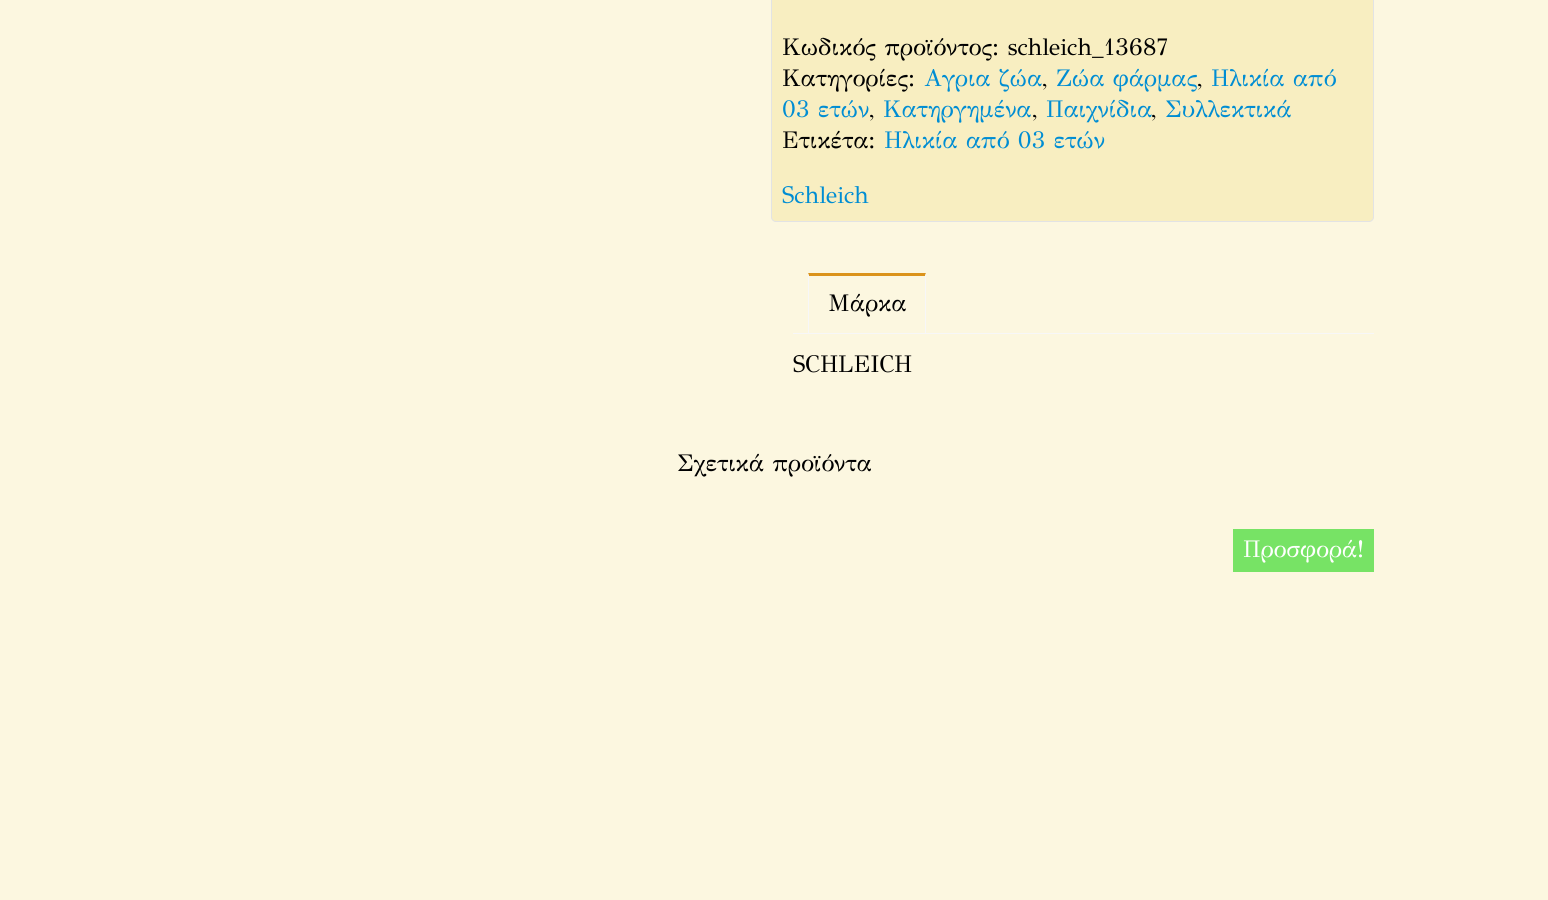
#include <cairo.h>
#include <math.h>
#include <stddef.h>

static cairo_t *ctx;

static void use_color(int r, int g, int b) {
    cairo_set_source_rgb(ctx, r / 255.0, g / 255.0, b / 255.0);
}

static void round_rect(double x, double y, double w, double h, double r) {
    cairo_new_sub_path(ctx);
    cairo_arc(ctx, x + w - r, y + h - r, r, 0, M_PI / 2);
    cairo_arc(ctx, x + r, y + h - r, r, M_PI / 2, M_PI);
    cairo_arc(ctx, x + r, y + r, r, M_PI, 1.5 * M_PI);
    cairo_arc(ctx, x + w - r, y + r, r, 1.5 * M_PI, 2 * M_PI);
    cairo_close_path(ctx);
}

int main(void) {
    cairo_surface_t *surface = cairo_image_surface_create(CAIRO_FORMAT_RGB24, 1548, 900);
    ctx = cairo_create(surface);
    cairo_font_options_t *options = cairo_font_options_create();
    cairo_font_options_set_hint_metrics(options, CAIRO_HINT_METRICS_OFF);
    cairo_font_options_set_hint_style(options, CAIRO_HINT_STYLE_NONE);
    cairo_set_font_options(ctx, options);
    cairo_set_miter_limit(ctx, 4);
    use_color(252, 247, 224);
    cairo_paint(ctx);
    use_color(248, 238, 193);
    round_rect(771.5, -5.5, 602, 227, 4.5);
    cairo_fill_preserve(ctx);
    use_color(226, 227, 228);
    cairo_set_line_width(ctx, 1);
    cairo_stroke(ctx);
    cairo_select_font_face(ctx, "GFS Didot", CAIRO_FONT_SLANT_NORMAL, CAIRO_FONT_WEIGHT_NORMAL);
    cairo_set_font_size(ctx, 24);
    use_color(0, 0, 0);
    cairo_move_to(ctx, 782, 55);
    cairo_show_text(ctx, "Κωδικός προϊόντος: schleich_13687");
    cairo_move_to(ctx, 782, 86);
    cairo_show_text(ctx, "Κατηγορίες:");
    use_color(0, 141, 211);
    cairo_move_to(ctx, 924, 86);
    cairo_show_text(ctx, "Αγρια ζώα");
    use_color(0, 0, 0);
    cairo_move_to(ctx, 1042, 86);
    cairo_show_text(ctx, ",");
    use_color(0, 141, 211);
    cairo_move_to(ctx, 1056, 86);
    cairo_show_text(ctx, "Ζώα φάρμας");
    use_color(0, 0, 0);
    cairo_move_to(ctx, 1197, 86);
    cairo_show_text(ctx, ",");
    use_color(0, 141, 211);
    cairo_move_to(ctx, 1211, 86);
    cairo_show_text(ctx, "Ηλικία από");
    cairo_move_to(ctx, 782, 117);
    cairo_show_text(ctx, "03 ετών");
    use_color(0, 0, 0);
    cairo_move_to(ctx, 869, 117);
    cairo_show_text(ctx, ",");
    use_color(0, 141, 211);
    cairo_move_to(ctx, 883, 117);
    cairo_show_text(ctx, "Κατηργημένα");
    use_color(0, 0, 0);
    cairo_move_to(ctx, 1032, 117);
    cairo_show_text(ctx, ",");
    use_color(0, 141, 211);
    cairo_move_to(ctx, 1046, 117);
    cairo_show_text(ctx, "Παιχνίδια");
    use_color(0, 0, 0);
    cairo_move_to(ctx, 1151, 117);
    cairo_show_text(ctx, ",");
    use_color(0, 141, 211);
    cairo_move_to(ctx, 1165, 117);
    cairo_show_text(ctx, "Συλλεκτικά");
    use_color(0, 0, 0);
    cairo_move_to(ctx, 782, 148);
    cairo_show_text(ctx, "Ετικέτα:");
    use_color(0, 141, 211);
    cairo_move_to(ctx, 884, 148);
    cairo_show_text(ctx, "Ηλικία από 03 ετών");
    cairo_move_to(ctx, 782, 203);
    cairo_show_text(ctx, "Schleich");
    use_color(219, 147, 27);
    cairo_new_path(ctx);
    cairo_move_to(ctx, 808, 273);
    cairo_line_to(ctx, 926, 273);
    cairo_line_to(ctx, 925, 276);
    cairo_line_to(ctx, 809, 276);
    cairo_close_path(ctx);
    cairo_fill(ctx);
    use_color(247, 247, 248);
    cairo_rectangle(ctx, 793, 333, 581, 1);
    cairo_fill(ctx);
    cairo_new_path(ctx);
    cairo_move_to(ctx, 926, 273);
    cairo_line_to(ctx, 926, 334);
    cairo_line_to(ctx, 925, 334);
    cairo_line_to(ctx, 925, 276);
    cairo_close_path(ctx);
    cairo_fill(ctx);
    cairo_new_path(ctx);
    cairo_move_to(ctx, 808, 334);
    cairo_line_to(ctx, 808, 273);
    cairo_line_to(ctx, 809, 276);
    cairo_line_to(ctx, 809, 334);
    cairo_close_path(ctx);
    cairo_fill(ctx);
    use_color(0, 0, 0);
    cairo_move_to(ctx, 828, 311);
    cairo_show_text(ctx, "Μάρκα");
    cairo_move_to(ctx, 793, 372);
    cairo_show_text(ctx, "SCHLEICH");
    cairo_move_to(ctx, 677, 471);
    cairo_show_text(ctx, "Σχετικά προϊόντα");
    use_color(119, 227, 101);
    cairo_rectangle(ctx, 1233, 529, 141, 43);
    cairo_fill(ctx);
    use_color(255, 255, 255);
    cairo_move_to(ctx, 1243, 557);
    cairo_show_text(ctx, "Προσφορά!");
    cairo_surface_write_to_png(surface, "result.png");
    cairo_font_options_destroy(options);
    cairo_destroy(ctx);
    cairo_surface_destroy(surface);
    return 0;
}
